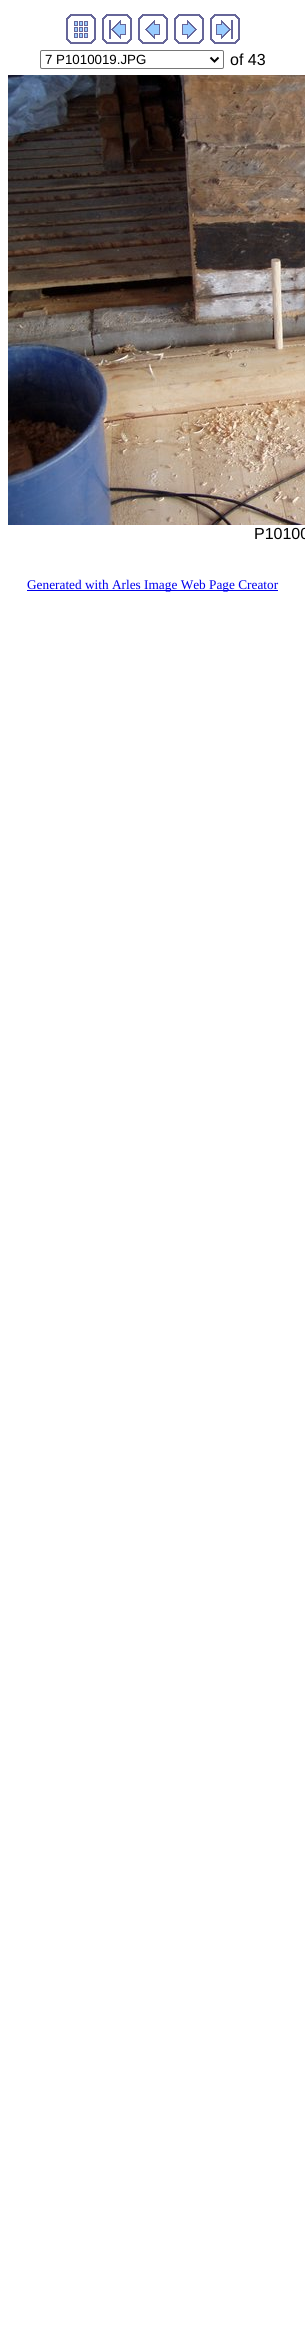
#include <cairo.h>
#include <math.h>
#include <stddef.h>

static cairo_t *ctx;

static void use_color(int r, int g, int b) {
    cairo_set_source_rgb(ctx, r / 255.0, g / 255.0, b / 255.0);
}

static void round_rect(double x, double y, double w, double h, double r) {
    cairo_new_sub_path(ctx);
    cairo_arc(ctx, x + w - r, y + h - r, r, 0, M_PI / 2);
    cairo_arc(ctx, x + r, y + h - r, r, M_PI / 2, M_PI);
    cairo_arc(ctx, x + r, y + r, r, M_PI, 1.5 * M_PI);
    cairo_arc(ctx, x + w - r, y + r, r, 1.5 * M_PI, 2 * M_PI);
    cairo_close_path(ctx);
}

static void picture(const char *path, double x, double y, double w, double h) {
    cairo_surface_t *image = cairo_image_surface_create_from_png(path);
    cairo_save(ctx);
    cairo_set_source_surface(ctx, image, x, y);
    cairo_rectangle(ctx, x, y, w, h);
    cairo_fill(ctx);
    cairo_restore(ctx);
    cairo_surface_destroy(image);
}

int main(void) {
    cairo_surface_t *surface = cairo_image_surface_create(CAIRO_FORMAT_RGB24, 305, 2333);
    ctx = cairo_create(surface);
    cairo_font_options_t *options = cairo_font_options_create();
    cairo_font_options_set_hint_metrics(options, CAIRO_HINT_METRICS_OFF);
    cairo_font_options_set_hint_style(options, CAIRO_HINT_STYLE_NONE);
    cairo_set_font_options(ctx, options);
    cairo_set_miter_limit(ctx, 4);
    use_color(255, 255, 255);
    cairo_paint(ctx);
    picture("img1.png", 66, 14, 30, 30);
    picture("img2.png", 102, 14, 30, 30);
    picture("img3.png", 138, 14, 30, 30);
    picture("img4.png", 174, 14, 30, 30);
    picture("img5.png", 210, 14, 30, 30);
    round_rect(40.5, 50.5, 183, 18, 1.5);
    use_color(118, 118, 118);
    cairo_set_line_width(ctx, 1);
    cairo_stroke(ctx);
    cairo_new_path(ctx);
    cairo_move_to(ctx, 210.5, 57.5);
    cairo_line_to(ctx, 214.5, 61.5);
    cairo_line_to(ctx, 218.5, 57.5);
    use_color(0, 0, 0);
    cairo_set_line_width(ctx, 2);
    cairo_stroke(ctx);
    cairo_select_font_face(ctx, "Liberation Sans", CAIRO_FONT_SLANT_NORMAL, CAIRO_FONT_WEIGHT_NORMAL);
    cairo_set_font_size(ctx, 13.3);
    cairo_move_to(ctx, 45, 64);
    cairo_show_text(ctx, "7 P1010019.JPG");
    cairo_set_font_size(ctx, 16);
    cairo_move_to(ctx, 230, 65);
    cairo_show_text(ctx, "of 43");
    picture("img6.png", 8, 75, 297, 450);
    cairo_move_to(ctx, 254, 539);
    cairo_show_text(ctx, "P10100");
    use_color(0, 0, 238);
    cairo_rectangle(ctx, 27, 590, 251, 1);
    cairo_fill(ctx);
    cairo_select_font_face(ctx, "Liberation Serif", CAIRO_FONT_SLANT_NORMAL, CAIRO_FONT_WEIGHT_NORMAL);
    cairo_set_font_size(ctx, 13.3);
    cairo_move_to(ctx, 27, 589);
    cairo_show_text(ctx, "Generated with Arles Image Web Page Creator");
    cairo_surface_write_to_png(surface, "result.png");
    cairo_font_options_destroy(options);
    cairo_destroy(ctx);
    cairo_surface_destroy(surface);
    return 0;
}
